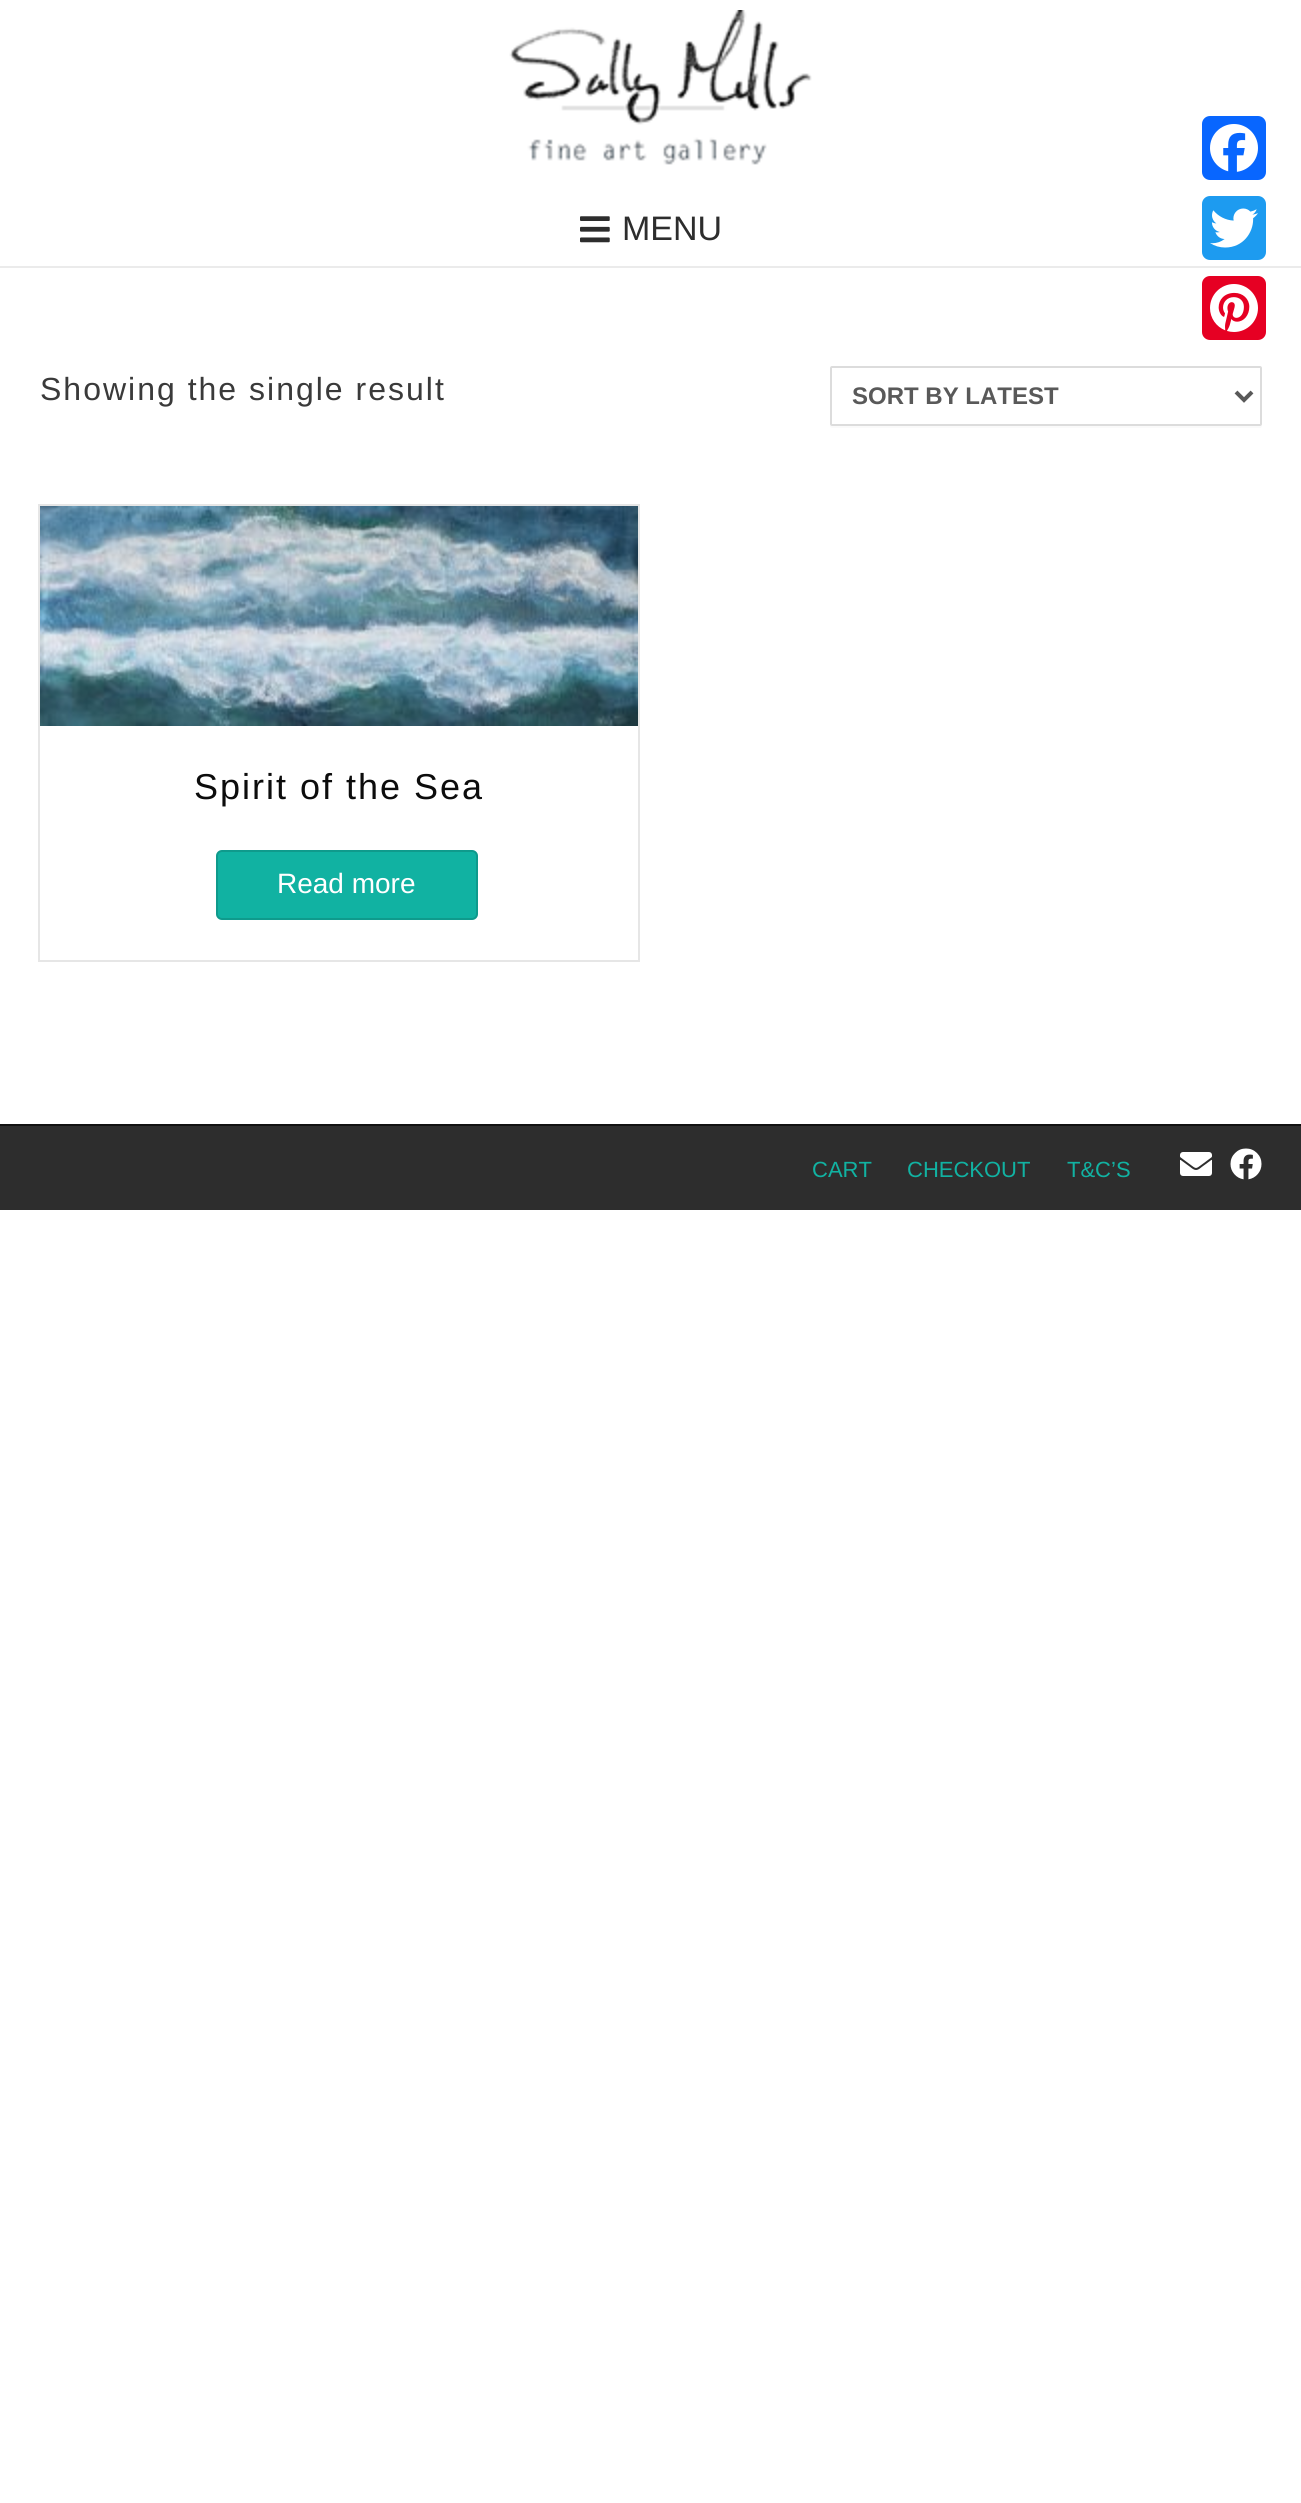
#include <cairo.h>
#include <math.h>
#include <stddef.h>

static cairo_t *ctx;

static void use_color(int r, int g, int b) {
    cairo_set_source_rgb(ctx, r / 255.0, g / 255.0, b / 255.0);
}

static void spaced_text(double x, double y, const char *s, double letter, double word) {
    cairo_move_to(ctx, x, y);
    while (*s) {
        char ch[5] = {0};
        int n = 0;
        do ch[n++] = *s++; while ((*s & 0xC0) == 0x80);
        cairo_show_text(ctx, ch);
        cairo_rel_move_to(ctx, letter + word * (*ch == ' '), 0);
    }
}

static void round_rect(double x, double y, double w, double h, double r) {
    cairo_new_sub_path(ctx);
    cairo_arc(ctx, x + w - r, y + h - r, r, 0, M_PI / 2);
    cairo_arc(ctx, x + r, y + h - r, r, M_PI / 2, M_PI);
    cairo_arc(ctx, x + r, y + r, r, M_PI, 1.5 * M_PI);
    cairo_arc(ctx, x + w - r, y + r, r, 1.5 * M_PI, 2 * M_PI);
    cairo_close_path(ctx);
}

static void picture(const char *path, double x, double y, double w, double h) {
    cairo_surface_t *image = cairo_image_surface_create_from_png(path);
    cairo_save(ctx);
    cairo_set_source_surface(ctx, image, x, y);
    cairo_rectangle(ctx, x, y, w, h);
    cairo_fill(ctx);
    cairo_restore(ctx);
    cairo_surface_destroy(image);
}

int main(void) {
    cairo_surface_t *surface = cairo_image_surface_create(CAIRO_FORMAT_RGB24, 1301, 2503);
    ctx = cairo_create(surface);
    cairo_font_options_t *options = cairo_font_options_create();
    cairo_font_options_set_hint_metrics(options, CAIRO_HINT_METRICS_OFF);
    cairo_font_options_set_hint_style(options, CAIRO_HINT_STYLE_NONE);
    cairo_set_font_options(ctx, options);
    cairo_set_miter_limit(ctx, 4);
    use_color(255, 255, 255);
    cairo_paint(ctx);
    use_color(235, 235, 235);
    cairo_rectangle(ctx, 0, 266, 1301, 2);
    cairo_fill(ctx);
    picture("img1.png", 509, 10, 303, 155);
    picture("img2.png", 580, 216, 30, 27);
    cairo_select_font_face(ctx, "Liberation Sans", CAIRO_FONT_SLANT_NORMAL, CAIRO_FONT_WEIGHT_NORMAL);
    cairo_set_font_size(ctx, 34);
    use_color(45, 45, 45);
    cairo_move_to(ctx, 622, 240);
    cairo_show_text(ctx, "MENU");
    cairo_set_font_size(ctx, 32);
    use_color(58, 58, 58);
    spaced_text(40, 400, "Showing the single result", 2, 0);
    use_color(250, 250, 250);
    cairo_new_path(ctx);
    cairo_move_to(ctx, 830, 424);
    cairo_line_to(ctx, 830, 427);
    cairo_line_to(ctx, 832, 428);
    cairo_line_to(ctx, 1260, 428);
    cairo_curve_to(ctx, 1262, 428, 1262, 426, 1262, 424);
    cairo_curve_to(ctx, 1262, 425, 1261, 426, 1260, 426);
    cairo_line_to(ctx, 832, 426);
    cairo_curve_to(ctx, 831, 426, 830, 425, 830, 424);
    cairo_close_path(ctx);
    cairo_fill(ctx);
    round_rect(831, 367, 430, 58, 1);
    use_color(220, 220, 220);
    cairo_stroke(ctx);
    cairo_new_path(ctx);
    cairo_move_to(ctx, 1236, 392);
    cairo_line_to(ctx, 1244, 400);
    cairo_line_to(ctx, 1252, 392);
    use_color(89, 89, 89);
    cairo_set_line_width(ctx, 4);
    cairo_stroke(ctx);
    cairo_select_font_face(ctx, "Liberation Sans", CAIRO_FONT_SLANT_NORMAL, CAIRO_FONT_WEIGHT_BOLD);
    cairo_set_font_size(ctx, 24);
    cairo_move_to(ctx, 852, 404);
    cairo_show_text(ctx, "SORT BY LATEST");
    cairo_rectangle(ctx, 39, 505, 600, 456);
    use_color(230, 230, 230);
    cairo_set_line_width(ctx, 2);
    cairo_stroke(ctx);
    picture("img3.png", 40, 506, 598, 220);
    cairo_select_font_face(ctx, "Liberation Sans", CAIRO_FONT_SLANT_NORMAL, CAIRO_FONT_WEIGHT_NORMAL);
    cairo_set_font_size(ctx, 36);
    use_color(12, 12, 12);
    spaced_text(194, 799, "Spirit of the Sea", 2, 0);
    use_color(17, 178, 162);
    round_rect(216, 850, 262, 70, 6);
    cairo_fill(ctx);
    round_rect(217, 851, 260, 68, 5);
    cairo_set_source_rgba(ctx, 0, 0, 0, 0.14);
    cairo_stroke(ctx);
    cairo_set_font_size(ctx, 28);
    use_color(255, 255, 255);
    cairo_move_to(ctx, 277, 893);
    cairo_show_text(ctx, "Read more");
    use_color(45, 45, 45);
    cairo_rectangle(ctx, 0, 1126, 1301, 84);
    cairo_fill(ctx);
    use_color(18, 18, 18);
    cairo_rectangle(ctx, 0, 1124, 1301, 2);
    cairo_fill(ctx);
    cairo_set_font_size(ctx, 22);
    use_color(17, 178, 162);
    cairo_move_to(ctx, 812, 1177);
    cairo_show_text(ctx, "CART");
    cairo_move_to(ctx, 907, 1177);
    cairo_show_text(ctx, "CHECKOUT");
    cairo_move_to(ctx, 1067, 1177);
    cairo_show_text(ctx, "T&C’S");
    picture("img4.png", 1180, 1152, 32, 24);
    picture("img5.png", 1230, 1148, 32, 32);
    use_color(8, 102, 255);
    round_rect(1202, 116, 64, 64, 8);
    cairo_fill(ctx);
    picture("img6.png", 1210, 124, 48, 48);
    use_color(29, 155, 240);
    round_rect(1202, 196, 64, 64, 8);
    cairo_fill(ctx);
    picture("img7.png", 1210, 208, 48, 40);
    use_color(230, 0, 35);
    round_rect(1202, 276, 64, 64, 8);
    cairo_fill(ctx);
    picture("img8.png", 1210, 284, 48, 48);
    cairo_surface_write_to_png(surface, "result.png");
    cairo_font_options_destroy(options);
    cairo_destroy(ctx);
    cairo_surface_destroy(surface);
    return 0;
}
